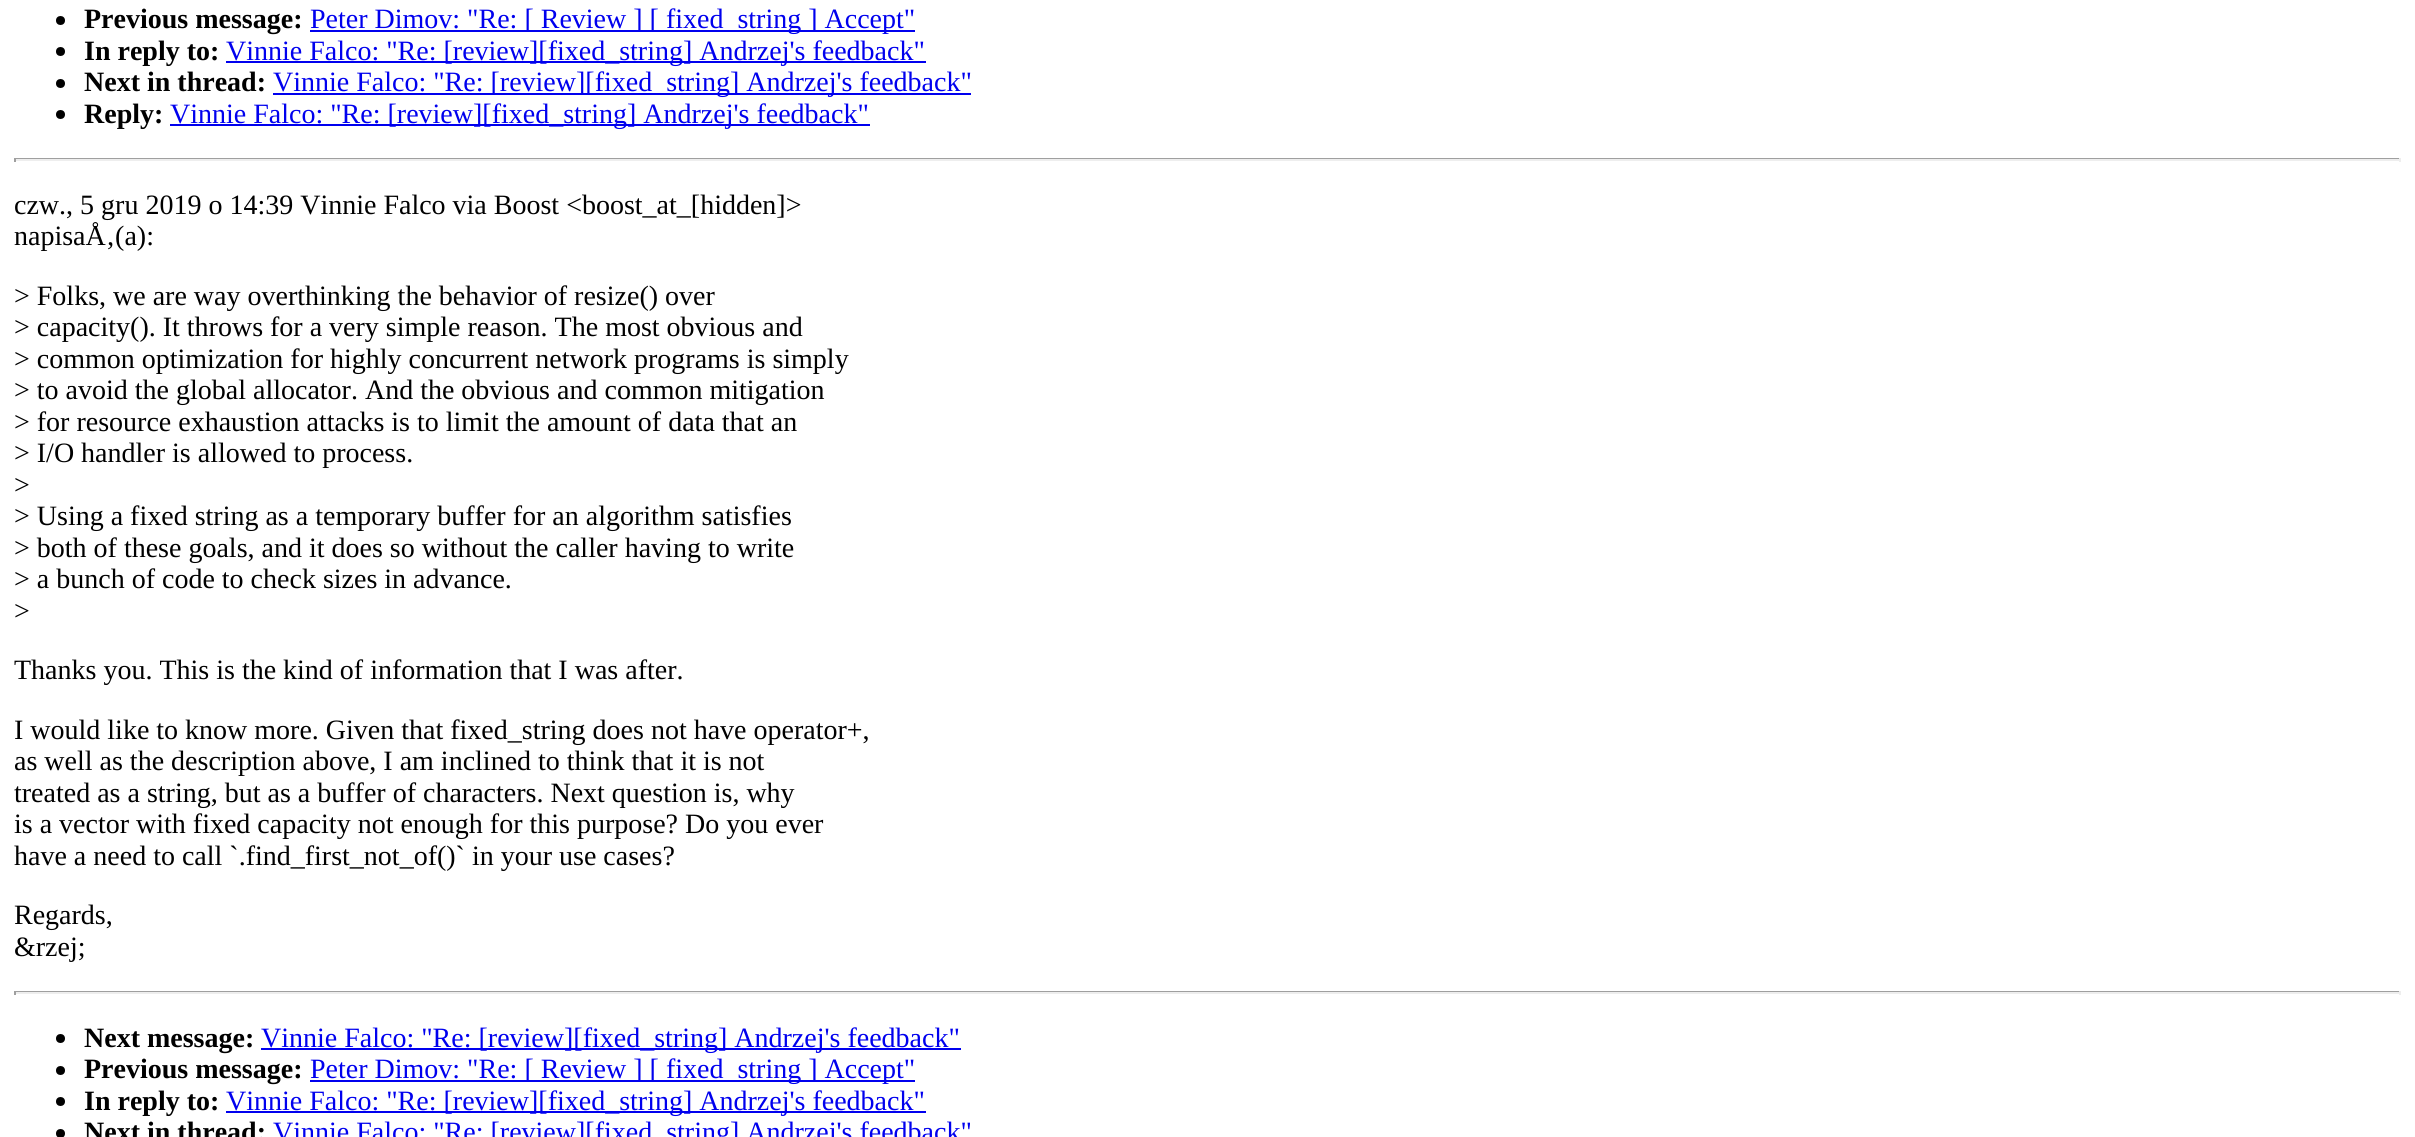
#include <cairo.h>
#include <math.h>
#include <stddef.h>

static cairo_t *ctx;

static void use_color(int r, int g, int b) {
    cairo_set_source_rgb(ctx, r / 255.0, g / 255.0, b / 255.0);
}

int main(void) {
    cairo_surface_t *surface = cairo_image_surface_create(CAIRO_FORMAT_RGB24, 2415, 1137);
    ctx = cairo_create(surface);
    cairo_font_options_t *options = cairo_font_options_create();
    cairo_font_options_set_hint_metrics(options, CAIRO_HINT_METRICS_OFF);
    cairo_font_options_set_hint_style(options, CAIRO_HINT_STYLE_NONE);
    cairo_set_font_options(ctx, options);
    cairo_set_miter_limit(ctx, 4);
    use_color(255, 255, 255);
    cairo_paint(ctx);
    use_color(0, 0, 0);
    cairo_arc(ctx, 60.5, 20.5, 4.5, 0, 2 * M_PI);
    cairo_fill(ctx);
    cairo_select_font_face(ctx, "Liberation Serif", CAIRO_FONT_SLANT_NORMAL, CAIRO_FONT_WEIGHT_BOLD);
    cairo_set_font_size(ctx, 28);
    cairo_move_to(ctx, 84, 28);
    cairo_show_text(ctx, "Previous message:");
    use_color(0, 0, 238);
    cairo_rectangle(ctx, 310, 30, 605, 2);
    cairo_fill(ctx);
    cairo_select_font_face(ctx, "Liberation Serif", CAIRO_FONT_SLANT_NORMAL, CAIRO_FONT_WEIGHT_NORMAL);
    cairo_move_to(ctx, 310, 28);
    cairo_show_text(ctx, "Peter Dimov: \"Re: [ Review ] [ fixed_string ] Accept\"");
    use_color(0, 0, 0);
    cairo_new_path(ctx);
    cairo_arc(ctx, 60.5, 51.5, 4.5, 0, 2 * M_PI);
    cairo_fill(ctx);
    cairo_select_font_face(ctx, "Liberation Serif", CAIRO_FONT_SLANT_NORMAL, CAIRO_FONT_WEIGHT_BOLD);
    cairo_move_to(ctx, 84, 60);
    cairo_show_text(ctx, "In reply to:");
    use_color(0, 0, 238);
    cairo_rectangle(ctx, 226, 61, 700, 2);
    cairo_fill(ctx);
    cairo_select_font_face(ctx, "Liberation Serif", CAIRO_FONT_SLANT_NORMAL, CAIRO_FONT_WEIGHT_NORMAL);
    cairo_move_to(ctx, 226, 60);
    cairo_show_text(ctx, "Vinnie Falco: \"Re: [review][fixed_string] Andrzej's feedback\"");
    use_color(0, 0, 0);
    cairo_new_path(ctx);
    cairo_arc(ctx, 60.5, 83.5, 4.5, 0, 2 * M_PI);
    cairo_fill(ctx);
    cairo_select_font_face(ctx, "Liberation Serif", CAIRO_FONT_SLANT_NORMAL, CAIRO_FONT_WEIGHT_BOLD);
    cairo_move_to(ctx, 84, 91);
    cairo_show_text(ctx, "Next in thread:");
    use_color(0, 0, 238);
    cairo_rectangle(ctx, 273, 93, 698, 2);
    cairo_fill(ctx);
    cairo_select_font_face(ctx, "Liberation Serif", CAIRO_FONT_SLANT_NORMAL, CAIRO_FONT_WEIGHT_NORMAL);
    cairo_move_to(ctx, 273, 91);
    cairo_show_text(ctx, "Vinnie Falco: \"Re: [review][fixed_string] Andrzej's feedback\"");
    use_color(0, 0, 0);
    cairo_new_path(ctx);
    cairo_arc(ctx, 60.5, 114.5, 4.5, 0, 2 * M_PI);
    cairo_fill(ctx);
    cairo_select_font_face(ctx, "Liberation Serif", CAIRO_FONT_SLANT_NORMAL, CAIRO_FONT_WEIGHT_BOLD);
    cairo_move_to(ctx, 84, 123);
    cairo_show_text(ctx, "Reply:");
    use_color(0, 0, 238);
    cairo_rectangle(ctx, 170, 124, 700, 2);
    cairo_fill(ctx);
    cairo_select_font_face(ctx, "Liberation Serif", CAIRO_FONT_SLANT_NORMAL, CAIRO_FONT_WEIGHT_NORMAL);
    cairo_move_to(ctx, 170, 123);
    cairo_show_text(ctx, "Vinnie Falco: \"Re: [review][fixed_string] Andrzej's feedback\"");
    use_color(159, 159, 159);
    cairo_rectangle(ctx, 14, 158, 2387, 1);
    cairo_fill(ctx);
    use_color(238, 238, 238);
    cairo_rectangle(ctx, 2399, 158, 2, 4);
    cairo_fill(ctx);
    cairo_rectangle(ctx, 14, 159, 2387, 2);
    cairo_fill(ctx);
    use_color(159, 159, 159);
    cairo_rectangle(ctx, 14, 158, 2, 4);
    cairo_fill(ctx);
    use_color(0, 0, 0);
    cairo_move_to(ctx, 14, 214);
    cairo_show_text(ctx, "czw., 5 gru 2019 o 14:39 Vinnie Falco via Boost <boost_at_[hidden]>");
    cairo_move_to(ctx, 14, 245);
    cairo_show_text(ctx, "napisaÅ‚(a):");
    cairo_move_to(ctx, 14, 305);
    cairo_show_text(ctx, "> Folks, we are way overthinking the behavior of resize() over");
    cairo_move_to(ctx, 14, 336);
    cairo_show_text(ctx, "> capacity(). It throws for a very simple reason. The most obvious and");
    cairo_move_to(ctx, 14, 368);
    cairo_show_text(ctx, "> common optimization for highly concurrent network programs is simply");
    cairo_move_to(ctx, 14, 399);
    cairo_show_text(ctx, "> to avoid the global allocator. And the obvious and common mitigation");
    cairo_move_to(ctx, 14, 431);
    cairo_show_text(ctx, "> for resource exhaustion attacks is to limit the amount of data that an");
    cairo_move_to(ctx, 14, 462);
    cairo_show_text(ctx, "> I/O handler is allowed to process.");
    cairo_move_to(ctx, 14, 494);
    cairo_show_text(ctx, ">");
    cairo_move_to(ctx, 14, 525);
    cairo_show_text(ctx, "> Using a fixed string as a temporary buffer for an algorithm satisfies");
    cairo_move_to(ctx, 14, 557);
    cairo_show_text(ctx, "> both of these goals, and it does so without the caller having to write");
    cairo_move_to(ctx, 14, 588);
    cairo_show_text(ctx, "> a bunch of code to check sizes in advance.");
    cairo_move_to(ctx, 14, 620);
    cairo_show_text(ctx, ">");
    cairo_move_to(ctx, 14, 679);
    cairo_show_text(ctx, "Thanks you. This is the kind of information that I was after.");
    cairo_move_to(ctx, 14, 739);
    cairo_show_text(ctx, "I would like to know more. Given that fixed_string does not have operator+,");
    cairo_move_to(ctx, 14, 770);
    cairo_show_text(ctx, "as well as the description above, I am inclined to think that it is not");
    cairo_move_to(ctx, 14, 802);
    cairo_show_text(ctx, "treated as a string, but as a buffer of characters. Next question is, why");
    cairo_move_to(ctx, 14, 833);
    cairo_show_text(ctx, "is a vector with fixed capacity not enough for this purpose? Do you ever");
    cairo_move_to(ctx, 14, 865);
    cairo_show_text(ctx, "have a need to call `.find_first_not_of()` in your use cases?");
    cairo_move_to(ctx, 14, 924);
    cairo_show_text(ctx, "Regards,");
    cairo_move_to(ctx, 14, 956);
    cairo_show_text(ctx, "&rzej;");
    use_color(159, 159, 159);
    cairo_rectangle(ctx, 14, 991, 2387, 1);
    cairo_fill(ctx);
    use_color(238, 238, 238);
    cairo_rectangle(ctx, 2399, 991, 2, 4);
    cairo_fill(ctx);
    cairo_rectangle(ctx, 14, 992, 2387, 2);
    cairo_fill(ctx);
    use_color(159, 159, 159);
    cairo_rectangle(ctx, 14, 991, 2, 4);
    cairo_fill(ctx);
    use_color(0, 0, 0);
    cairo_arc(ctx, 60.5, 1038.5, 4.5, 0, 2 * M_PI);
    cairo_fill(ctx);
    cairo_select_font_face(ctx, "Liberation Serif", CAIRO_FONT_SLANT_NORMAL, CAIRO_FONT_WEIGHT_BOLD);
    cairo_move_to(ctx, 84, 1047);
    cairo_show_text(ctx, "Next message:");
    use_color(0, 0, 238);
    cairo_rectangle(ctx, 261, 1048, 700, 2);
    cairo_fill(ctx);
    cairo_select_font_face(ctx, "Liberation Serif", CAIRO_FONT_SLANT_NORMAL, CAIRO_FONT_WEIGHT_NORMAL);
    cairo_move_to(ctx, 261, 1047);
    cairo_show_text(ctx, "Vinnie Falco: \"Re: [review][fixed_string] Andrzej's feedback\"");
    use_color(0, 0, 0);
    cairo_new_path(ctx);
    cairo_arc(ctx, 60.5, 1070.5, 4.5, 0, 2 * M_PI);
    cairo_fill(ctx);
    cairo_select_font_face(ctx, "Liberation Serif", CAIRO_FONT_SLANT_NORMAL, CAIRO_FONT_WEIGHT_BOLD);
    cairo_move_to(ctx, 84, 1078);
    cairo_show_text(ctx, "Previous message:");
    use_color(0, 0, 238);
    cairo_rectangle(ctx, 310, 1080, 605, 2);
    cairo_fill(ctx);
    cairo_select_font_face(ctx, "Liberation Serif", CAIRO_FONT_SLANT_NORMAL, CAIRO_FONT_WEIGHT_NORMAL);
    cairo_move_to(ctx, 310, 1078);
    cairo_show_text(ctx, "Peter Dimov: \"Re: [ Review ] [ fixed_string ] Accept\"");
    use_color(0, 0, 0);
    cairo_new_path(ctx);
    cairo_arc(ctx, 60.5, 1101.5, 4.5, 0, 2 * M_PI);
    cairo_fill(ctx);
    cairo_select_font_face(ctx, "Liberation Serif", CAIRO_FONT_SLANT_NORMAL, CAIRO_FONT_WEIGHT_BOLD);
    cairo_move_to(ctx, 84, 1110);
    cairo_show_text(ctx, "In reply to:");
    use_color(0, 0, 238);
    cairo_rectangle(ctx, 226, 1111, 700, 2);
    cairo_fill(ctx);
    cairo_select_font_face(ctx, "Liberation Serif", CAIRO_FONT_SLANT_NORMAL, CAIRO_FONT_WEIGHT_NORMAL);
    cairo_move_to(ctx, 226, 1110);
    cairo_show_text(ctx, "Vinnie Falco: \"Re: [review][fixed_string] Andrzej's feedback\"");
    use_color(0, 0, 0);
    cairo_new_path(ctx);
    cairo_arc(ctx, 60.5, 1133.5, 4.5, 0, 2 * M_PI);
    cairo_fill(ctx);
    cairo_select_font_face(ctx, "Liberation Serif", CAIRO_FONT_SLANT_NORMAL, CAIRO_FONT_WEIGHT_BOLD);
    cairo_move_to(ctx, 84, 1141);
    cairo_show_text(ctx, "Next in thread:");
    cairo_select_font_face(ctx, "Liberation Serif", CAIRO_FONT_SLANT_NORMAL, CAIRO_FONT_WEIGHT_NORMAL);
    use_color(0, 0, 238);
    cairo_move_to(ctx, 273, 1141);
    cairo_show_text(ctx, "Vinnie Falco: \"Re: [review][fixed_string] Andrzej's feedback\"");
    cairo_surface_write_to_png(surface, "result.png");
    cairo_font_options_destroy(options);
    cairo_destroy(ctx);
    cairo_surface_destroy(surface);
    return 0;
}
